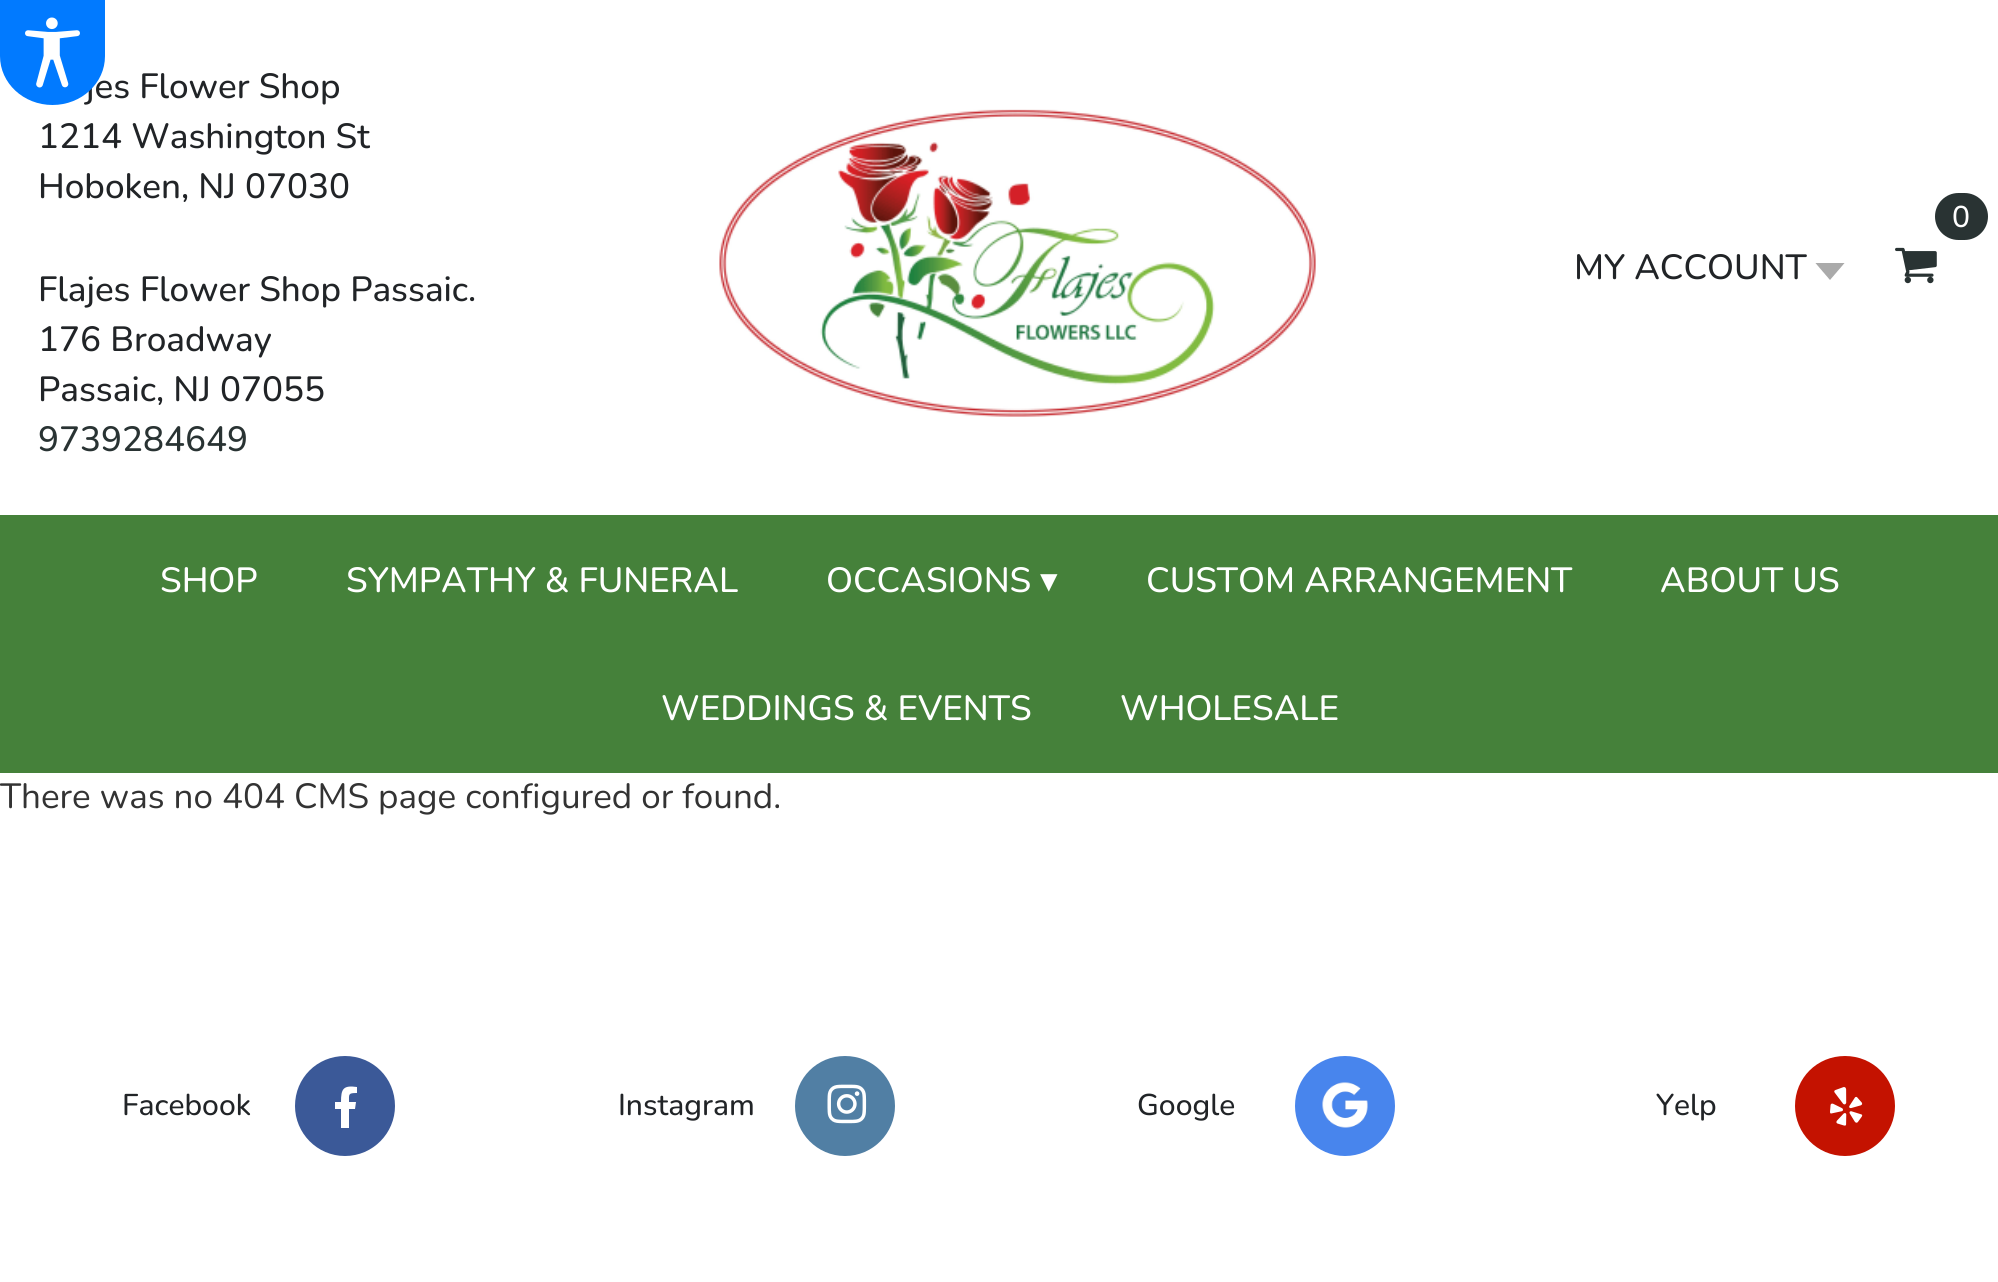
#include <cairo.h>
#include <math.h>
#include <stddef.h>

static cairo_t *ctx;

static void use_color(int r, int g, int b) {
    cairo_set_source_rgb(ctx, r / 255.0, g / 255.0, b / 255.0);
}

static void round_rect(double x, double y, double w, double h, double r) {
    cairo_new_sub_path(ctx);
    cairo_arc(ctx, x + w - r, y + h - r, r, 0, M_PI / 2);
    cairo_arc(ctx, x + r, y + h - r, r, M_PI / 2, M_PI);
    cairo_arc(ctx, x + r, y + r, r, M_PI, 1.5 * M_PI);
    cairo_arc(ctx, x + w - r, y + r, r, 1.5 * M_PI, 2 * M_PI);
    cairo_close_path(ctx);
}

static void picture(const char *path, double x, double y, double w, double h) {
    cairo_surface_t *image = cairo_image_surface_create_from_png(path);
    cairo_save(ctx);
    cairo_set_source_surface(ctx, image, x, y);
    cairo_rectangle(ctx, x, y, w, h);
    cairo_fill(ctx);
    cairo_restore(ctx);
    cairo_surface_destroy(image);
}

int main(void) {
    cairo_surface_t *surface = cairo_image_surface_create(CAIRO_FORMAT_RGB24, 1998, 1282);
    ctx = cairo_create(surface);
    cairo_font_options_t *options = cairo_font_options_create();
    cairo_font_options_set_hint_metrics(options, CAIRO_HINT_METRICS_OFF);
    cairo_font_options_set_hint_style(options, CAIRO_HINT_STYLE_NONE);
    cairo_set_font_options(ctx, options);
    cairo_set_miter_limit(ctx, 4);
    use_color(255, 255, 255);
    cairo_paint(ctx);
    cairo_select_font_face(ctx, "Nunito Medium", CAIRO_FONT_SLANT_NORMAL, CAIRO_FONT_WEIGHT_NORMAL);
    cairo_set_font_size(ctx, 35);
    use_color(33, 36, 39);
    cairo_move_to(ctx, 86, 98);
    cairo_show_text(ctx, "jes Flower Shop");
    picture("img1.png", 0, 0, 105, 105);
    cairo_move_to(ctx, 38, 148);
    cairo_show_text(ctx, "1214 Washington St");
    cairo_move_to(ctx, 38, 198);
    cairo_show_text(ctx, "Hoboken, NJ 07030");
    cairo_move_to(ctx, 38, 301);
    cairo_show_text(ctx, "Flajes Flower Shop Passaic.");
    cairo_move_to(ctx, 38, 351);
    cairo_show_text(ctx, "176 Broadway");
    cairo_move_to(ctx, 38, 401);
    cairo_show_text(ctx, "Passaic, NJ 07055");
    use_color(41, 51, 51);
    cairo_move_to(ctx, 38, 451);
    cairo_show_text(ctx, "9739284649");
    picture("img2.png", 719, 109, 597, 308);
    round_rect(1935, 193, 53, 47, 23.5);
    cairo_fill(ctx);
    cairo_set_font_size(ctx, 30);
    use_color(255, 255, 255);
    cairo_move_to(ctx, 1952, 227);
    cairo_show_text(ctx, "0");
    picture("img3.png", 1895, 247, 42, 37);
    cairo_set_font_size(ctx, 35);
    use_color(33, 36, 39);
    cairo_move_to(ctx, 1574, 279);
    cairo_show_text(ctx, "MY ACCOUNT");
    picture("img4.png", 1815, 263, 30, 17);
    use_color(69, 129, 58);
    cairo_rectangle(ctx, 0, 515, 1998, 258);
    cairo_fill(ctx);
    use_color(255, 255, 255);
    cairo_move_to(ctx, 160, 592);
    cairo_show_text(ctx, "SHOP");
    cairo_move_to(ctx, 346, 592);
    cairo_show_text(ctx, "SYMPATHY & FUNERAL");
    cairo_move_to(ctx, 826, 592);
    cairo_show_text(ctx, "OCCASIONS");
    cairo_select_font_face(ctx, "DejaVu Sans", CAIRO_FONT_SLANT_NORMAL, CAIRO_FONT_WEIGHT_NORMAL);
    cairo_move_to(ctx, 1040, 592);
    cairo_show_text(ctx, "▾");
    cairo_select_font_face(ctx, "Nunito Medium", CAIRO_FONT_SLANT_NORMAL, CAIRO_FONT_WEIGHT_NORMAL);
    cairo_move_to(ctx, 1146, 592);
    cairo_show_text(ctx, "CUSTOM ARRANGEMENT");
    cairo_move_to(ctx, 1660, 592);
    cairo_show_text(ctx, "ABOUT US");
    cairo_move_to(ctx, 661, 720);
    cairo_show_text(ctx, "WEDDINGS & EVENTS");
    cairo_move_to(ctx, 1120, 720);
    cairo_show_text(ctx, "WHOLESALE");
    cairo_select_font_face(ctx, "Nunito", CAIRO_FONT_SLANT_NORMAL, CAIRO_FONT_WEIGHT_NORMAL);
    use_color(51, 51, 51);
    cairo_move_to(ctx, 0, 808);
    cairo_show_text(ctx, "There was no 404 CMS page configured or found.");
    cairo_select_font_face(ctx, "Nunito Medium", CAIRO_FONT_SLANT_NORMAL, CAIRO_FONT_WEIGHT_NORMAL);
    cairo_set_font_size(ctx, 30);
    use_color(33, 36, 39);
    cairo_move_to(ctx, 122, 1115);
    cairo_show_text(ctx, "Facebook");
    use_color(59, 89, 152);
    cairo_new_path(ctx);
    cairo_move_to(ctx, 395, 1106);
    cairo_curve_to(ctx, 395, 1078, 373, 1056, 345, 1056);
    cairo_curve_to(ctx, 317, 1056, 295, 1078, 295, 1106);
    cairo_curve_to(ctx, 295, 1133, 317, 1156, 345, 1156);
    cairo_curve_to(ctx, 373, 1156, 395, 1133, 395, 1106);
    cairo_close_path(ctx);
    cairo_fill(ctx);
    use_color(255, 255, 255);
    cairo_new_path(ctx);
    cairo_move_to(ctx, 357, 1087);
    cairo_curve_to(ctx, 343, 1085, 341, 1089, 341, 1102);
    cairo_line_to(ctx, 335, 1102);
    cairo_line_to(ctx, 335, 1109);
    cairo_line_to(ctx, 341, 1109);
    cairo_line_to(ctx, 341, 1128);
    cairo_line_to(ctx, 349, 1128);
    cairo_line_to(ctx, 349, 1109);
    cairo_line_to(ctx, 355, 1109);
    cairo_line_to(ctx, 356, 1102);
    cairo_line_to(ctx, 349, 1102);
    cairo_curve_to(ctx, 349, 1094, 348, 1093, 357, 1093);
    cairo_close_path(ctx);
    cairo_fill(ctx);
    use_color(33, 36, 39);
    cairo_move_to(ctx, 618, 1115);
    cairo_show_text(ctx, "Instagram");
    use_color(81, 127, 164);
    cairo_new_path(ctx);
    cairo_move_to(ctx, 895, 1106);
    cairo_curve_to(ctx, 895, 1078, 873, 1056, 845, 1056);
    cairo_curve_to(ctx, 817, 1056, 795, 1078, 795, 1106);
    cairo_curve_to(ctx, 795, 1133, 817, 1156, 845, 1156);
    cairo_curve_to(ctx, 873, 1156, 895, 1133, 895, 1106);
    cairo_close_path(ctx);
    cairo_fill(ctx);
    picture("img5.png", 827, 1084, 40, 40);
    use_color(33, 36, 39);
    cairo_move_to(ctx, 1137, 1115);
    cairo_show_text(ctx, "Google");
    use_color(72, 133, 237);
    cairo_new_path(ctx);
    cairo_move_to(ctx, 1395, 1106);
    cairo_curve_to(ctx, 1395, 1078, 1373, 1056, 1345, 1056);
    cairo_curve_to(ctx, 1317, 1056, 1295, 1078, 1295, 1106);
    cairo_curve_to(ctx, 1295, 1133, 1317, 1156, 1345, 1156);
    cairo_curve_to(ctx, 1373, 1156, 1395, 1133, 1395, 1106);
    cairo_close_path(ctx);
    cairo_fill(ctx);
    picture("img6.png", 1322, 1082, 46, 46);
    use_color(33, 36, 39);
    cairo_move_to(ctx, 1656, 1115);
    cairo_show_text(ctx, "Yelp");
    use_color(196, 18, 0);
    cairo_new_path(ctx);
    cairo_move_to(ctx, 1895, 1106);
    cairo_curve_to(ctx, 1895, 1078, 1873, 1056, 1845, 1056);
    cairo_curve_to(ctx, 1817, 1056, 1795, 1078, 1795, 1106);
    cairo_curve_to(ctx, 1795, 1133, 1817, 1156, 1845, 1156);
    cairo_curve_to(ctx, 1873, 1156, 1895, 1133, 1895, 1106);
    cairo_close_path(ctx);
    cairo_fill(ctx);
    picture("img7.png", 1830, 1087, 33, 39);
    cairo_surface_write_to_png(surface, "result.png");
    cairo_font_options_destroy(options);
    cairo_destroy(ctx);
    cairo_surface_destroy(surface);
    return 0;
}
